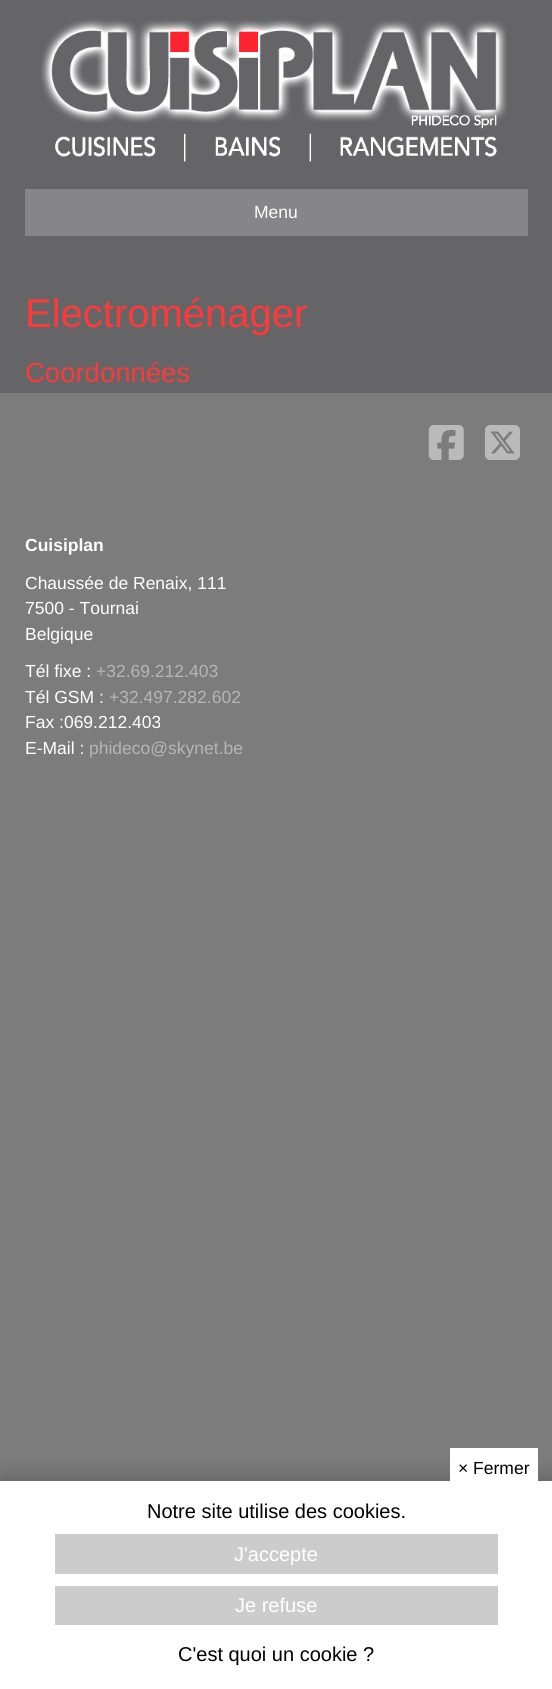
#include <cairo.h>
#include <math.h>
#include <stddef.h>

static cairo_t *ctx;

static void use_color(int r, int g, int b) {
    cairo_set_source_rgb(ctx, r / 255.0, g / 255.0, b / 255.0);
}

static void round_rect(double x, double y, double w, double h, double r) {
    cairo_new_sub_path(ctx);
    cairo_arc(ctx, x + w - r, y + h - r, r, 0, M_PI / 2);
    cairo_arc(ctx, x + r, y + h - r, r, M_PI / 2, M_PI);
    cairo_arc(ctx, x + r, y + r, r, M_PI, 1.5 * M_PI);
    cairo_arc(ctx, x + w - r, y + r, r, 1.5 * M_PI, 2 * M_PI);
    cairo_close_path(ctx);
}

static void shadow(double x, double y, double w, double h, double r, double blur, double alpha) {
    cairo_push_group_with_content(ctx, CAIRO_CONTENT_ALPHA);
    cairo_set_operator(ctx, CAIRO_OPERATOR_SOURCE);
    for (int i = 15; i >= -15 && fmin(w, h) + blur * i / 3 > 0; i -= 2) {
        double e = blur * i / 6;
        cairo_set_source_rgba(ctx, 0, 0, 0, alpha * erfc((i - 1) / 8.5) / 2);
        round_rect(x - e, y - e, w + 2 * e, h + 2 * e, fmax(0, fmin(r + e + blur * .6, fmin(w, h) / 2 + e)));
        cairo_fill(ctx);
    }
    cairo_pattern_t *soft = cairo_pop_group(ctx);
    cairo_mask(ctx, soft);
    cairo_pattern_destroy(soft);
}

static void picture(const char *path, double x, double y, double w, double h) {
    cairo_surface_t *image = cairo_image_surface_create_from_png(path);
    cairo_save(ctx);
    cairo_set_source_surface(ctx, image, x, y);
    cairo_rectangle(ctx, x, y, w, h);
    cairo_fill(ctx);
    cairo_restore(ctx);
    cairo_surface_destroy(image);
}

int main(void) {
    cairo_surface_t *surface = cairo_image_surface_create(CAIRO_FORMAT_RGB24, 552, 1689);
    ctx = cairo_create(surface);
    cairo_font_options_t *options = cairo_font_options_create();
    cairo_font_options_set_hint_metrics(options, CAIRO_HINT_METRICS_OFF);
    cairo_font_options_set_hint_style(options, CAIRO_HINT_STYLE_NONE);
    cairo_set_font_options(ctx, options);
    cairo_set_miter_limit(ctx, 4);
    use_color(101, 101, 103);
    cairo_paint(ctx);
    picture("img1.png", 41, 19, 466, 143);
    use_color(134, 134, 136);
    cairo_rectangle(ctx, 25, 189, 503, 47);
    cairo_fill(ctx);
    cairo_select_font_face(ctx, "Liberation Sans", CAIRO_FONT_SLANT_NORMAL, CAIRO_FONT_WEIGHT_NORMAL);
    cairo_set_font_size(ctx, 17.5);
    use_color(255, 255, 255);
    cairo_move_to(ctx, 254, 218);
    cairo_show_text(ctx, "Menu");
    cairo_set_font_size(ctx, 40);
    use_color(252, 58, 58);
    cairo_move_to(ctx, 25, 327);
    cairo_show_text(ctx, "Electroménager");
    cairo_set_font_size(ctx, 27.5);
    cairo_move_to(ctx, 25, 382);
    cairo_show_text(ctx, "Coordonnées");
    use_color(124, 124, 125);
    cairo_rectangle(ctx, 0, 393, 552, 1088);
    cairo_fill(ctx);
    picture("img2.png", 428, 425, 36, 35);
    picture("img3.png", 485, 425, 35, 35);
    cairo_select_font_face(ctx, "Liberation Sans", CAIRO_FONT_SLANT_NORMAL, CAIRO_FONT_WEIGHT_BOLD);
    cairo_set_font_size(ctx, 17.5);
    use_color(255, 255, 255);
    cairo_move_to(ctx, 25, 551);
    cairo_show_text(ctx, "Cuisiplan");
    cairo_select_font_face(ctx, "Liberation Sans", CAIRO_FONT_SLANT_NORMAL, CAIRO_FONT_WEIGHT_NORMAL);
    cairo_move_to(ctx, 25, 589);
    cairo_show_text(ctx, "Chaussée de Renaix, 111");
    cairo_move_to(ctx, 25, 614);
    cairo_show_text(ctx, "7500 - Tournai");
    cairo_move_to(ctx, 25, 640);
    cairo_show_text(ctx, "Belgique");
    cairo_move_to(ctx, 25, 677);
    cairo_show_text(ctx, "Tél fixe :");
    use_color(181, 181, 181);
    cairo_move_to(ctx, 96, 677);
    cairo_show_text(ctx, "+32.69.212.403");
    use_color(255, 255, 255);
    cairo_move_to(ctx, 25, 703);
    cairo_show_text(ctx, "Tél GSM :");
    use_color(181, 181, 181);
    cairo_move_to(ctx, 109, 703);
    cairo_show_text(ctx, "+32.497.282.602");
    use_color(255, 255, 255);
    cairo_move_to(ctx, 25, 728);
    cairo_show_text(ctx, "Fax :069.212.403");
    cairo_move_to(ctx, 25, 754);
    cairo_show_text(ctx, "E-Mail :");
    use_color(181, 181, 181);
    cairo_move_to(ctx, 89, 754);
    cairo_show_text(ctx, "phideco@skynet.be");
    use_color(0, 0, 0);
    shadow(0, 1481, 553, 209, 0, 12.5, 0.3);
    use_color(255, 255, 255);
    cairo_rectangle(ctx, 0, 1481, 552, 208);
    cairo_fill(ctx);
    cairo_rectangle(ctx, 450, 1448, 88, 33);
    cairo_fill(ctx);
    use_color(0, 0, 0);
    cairo_move_to(ctx, 458, 1474);
    cairo_show_text(ctx, "× Fermer");
    cairo_set_font_size(ctx, 20);
    cairo_move_to(ctx, 147, 1518);
    cairo_show_text(ctx, "Notre site utilise des cookies.");
    use_color(204, 204, 204);
    cairo_rectangle(ctx, 55, 1534, 443, 40);
    cairo_fill(ctx);
    use_color(255, 255, 255);
    cairo_move_to(ctx, 234, 1561);
    cairo_show_text(ctx, "J'accepte");
    use_color(204, 204, 204);
    cairo_rectangle(ctx, 55, 1586, 443, 39);
    cairo_fill(ctx);
    use_color(255, 255, 255);
    cairo_move_to(ctx, 235, 1612);
    cairo_show_text(ctx, "Je refuse");
    use_color(0, 0, 0);
    cairo_move_to(ctx, 178, 1661);
    cairo_show_text(ctx, "C'est quoi un cookie ?");
    cairo_surface_write_to_png(surface, "result.png");
    cairo_font_options_destroy(options);
    cairo_destroy(ctx);
    cairo_surface_destroy(surface);
    return 0;
}
